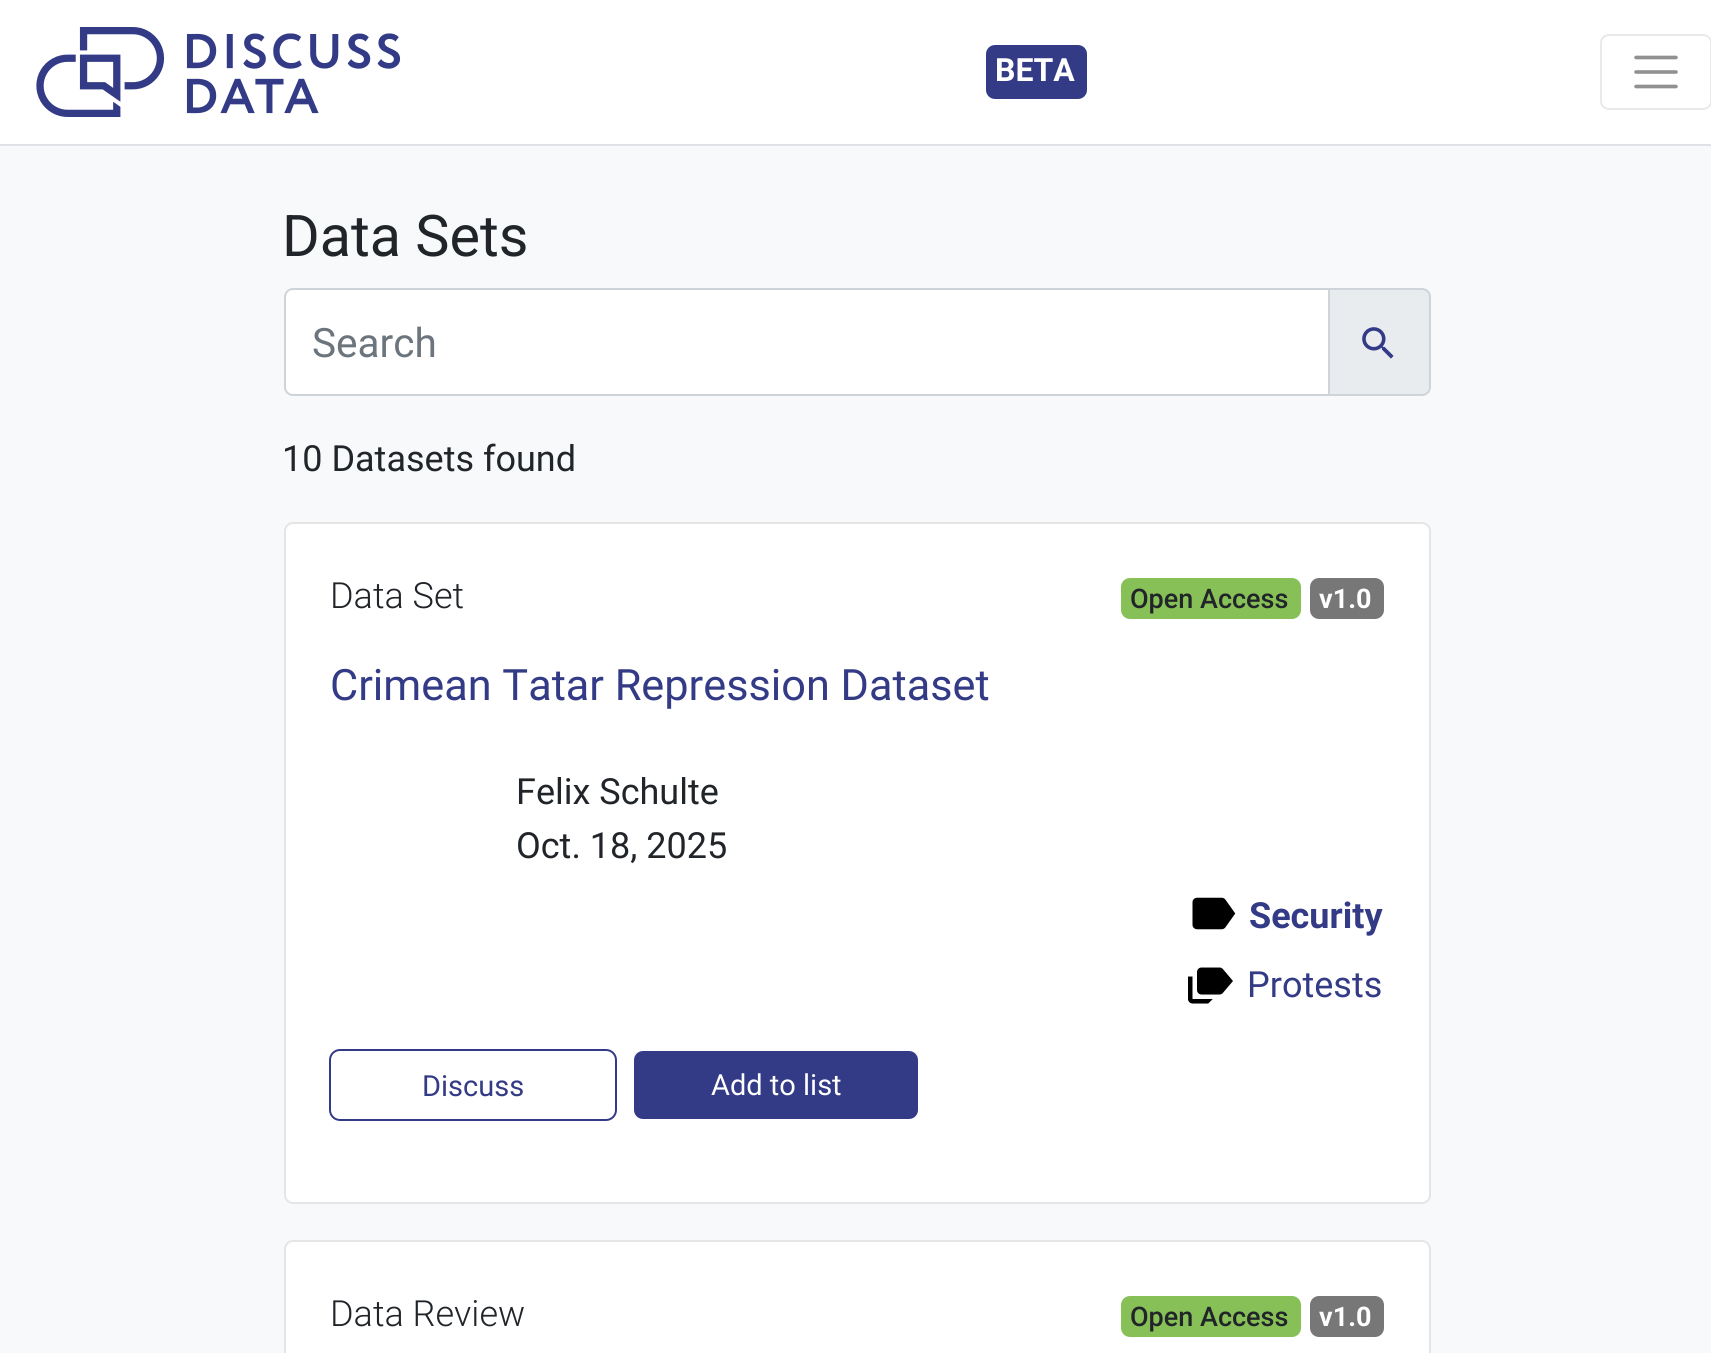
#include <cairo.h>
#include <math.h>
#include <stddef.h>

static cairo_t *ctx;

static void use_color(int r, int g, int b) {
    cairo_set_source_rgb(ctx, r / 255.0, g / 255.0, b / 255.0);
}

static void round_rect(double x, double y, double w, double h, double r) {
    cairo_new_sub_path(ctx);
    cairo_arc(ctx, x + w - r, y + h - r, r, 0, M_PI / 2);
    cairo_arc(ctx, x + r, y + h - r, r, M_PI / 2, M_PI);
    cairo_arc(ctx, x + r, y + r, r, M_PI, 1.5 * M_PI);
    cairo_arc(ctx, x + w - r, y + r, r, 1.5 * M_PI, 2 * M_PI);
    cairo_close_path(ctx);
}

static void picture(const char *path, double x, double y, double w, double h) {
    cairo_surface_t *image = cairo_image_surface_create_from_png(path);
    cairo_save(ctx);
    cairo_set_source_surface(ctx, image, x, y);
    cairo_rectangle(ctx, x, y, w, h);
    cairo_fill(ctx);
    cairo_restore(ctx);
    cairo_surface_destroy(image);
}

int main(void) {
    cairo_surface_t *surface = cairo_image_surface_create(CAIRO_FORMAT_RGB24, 1711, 1353);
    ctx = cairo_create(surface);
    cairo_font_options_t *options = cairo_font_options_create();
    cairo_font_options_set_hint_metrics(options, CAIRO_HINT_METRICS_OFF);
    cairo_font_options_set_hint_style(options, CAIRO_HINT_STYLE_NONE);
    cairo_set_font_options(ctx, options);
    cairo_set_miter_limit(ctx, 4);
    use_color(248, 249, 250);
    cairo_paint(ctx);
    use_color(255, 255, 255);
    cairo_rectangle(ctx, 0, 0, 1711, 144);
    cairo_fill(ctx);
    use_color(222, 226, 230);
    cairo_rectangle(ctx, 0, 144, 1711, 2);
    cairo_fill(ctx);
    picture("img1.png", 36, 27, 365, 90);
    use_color(52, 59, 134);
    round_rect(986, 45, 101, 54, 9);
    cairo_fill(ctx);
    cairo_select_font_face(ctx, "Roboto", CAIRO_FONT_SLANT_NORMAL, CAIRO_FONT_WEIGHT_BOLD);
    cairo_set_font_size(ctx, 32);
    use_color(255, 255, 255);
    cairo_move_to(ctx, 995, 81);
    cairo_show_text(ctx, "BETA");
    round_rect(1601, 35, 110, 74, 8);
    use_color(233, 233, 233);
    cairo_stroke(ctx);
    cairo_new_path(ctx);
    cairo_move_to(ctx, 1636, 57.5);
    cairo_line_to(ctx, 1676, 57.5);
    cairo_move_to(ctx, 1636, 72);
    cairo_line_to(ctx, 1676, 72);
    cairo_move_to(ctx, 1636, 86.5);
    cairo_line_to(ctx, 1676, 86.5);
    use_color(145, 145, 145);
    cairo_set_line_width(ctx, 3.6);
    cairo_set_line_cap(ctx, CAIRO_LINE_CAP_ROUND);
    cairo_stroke(ctx);
    cairo_select_font_face(ctx, "Roboto", CAIRO_FONT_SLANT_NORMAL, CAIRO_FONT_WEIGHT_NORMAL);
    cairo_set_font_size(ctx, 57.5);
    use_color(33, 37, 41);
    cairo_move_to(ctx, 282, 256);
    cairo_show_text(ctx, "Data Sets");
    use_color(233, 236, 239);
    cairo_new_path(ctx);
    cairo_move_to(ctx, 1329, 289);
    cairo_line_to(ctx, 1422, 289);
    cairo_curve_to(ctx, 1426.5, 289, 1430, 292.5, 1430, 297);
    cairo_line_to(ctx, 1430, 387);
    cairo_curve_to(ctx, 1430, 391.5, 1426.5, 395, 1422, 395);
    cairo_line_to(ctx, 1329, 395);
    cairo_close_path(ctx);
    cairo_fill_preserve(ctx);
    use_color(206, 212, 218);
    cairo_set_line_width(ctx, 2);
    cairo_set_line_cap(ctx, CAIRO_LINE_CAP_BUTT);
    cairo_stroke(ctx);
    use_color(255, 255, 255);
    cairo_new_path(ctx);
    cairo_move_to(ctx, 293, 289);
    cairo_line_to(ctx, 1329, 289);
    cairo_line_to(ctx, 1329, 395);
    cairo_line_to(ctx, 293, 395);
    cairo_curve_to(ctx, 288.5, 395, 285, 391.5, 285, 387);
    cairo_line_to(ctx, 285, 297);
    cairo_curve_to(ctx, 285, 292.5, 288.5, 289, 293, 289);
    cairo_close_path(ctx);
    cairo_fill_preserve(ctx);
    use_color(206, 212, 218);
    cairo_stroke(ctx);
    cairo_set_font_size(ctx, 40.5);
    use_color(108, 117, 125);
    cairo_move_to(ctx, 312, 357);
    cairo_show_text(ctx, "Search");
    picture("img2.png", 1362, 327, 32, 32);
    cairo_set_font_size(ctx, 36);
    use_color(33, 37, 41);
    cairo_move_to(ctx, 282, 471);
    cairo_show_text(ctx, "10 Datasets found");
    use_color(255, 255, 255);
    round_rect(284, 522, 1147, 682, 9);
    cairo_fill(ctx);
    round_rect(285, 523, 1145, 680, 8);
    cairo_set_source_rgba(ctx, 0.133, 0.133, 0.133, 0.12);
    cairo_stroke(ctx);
    cairo_select_font_face(ctx, "Roboto Light", CAIRO_FONT_SLANT_NORMAL, CAIRO_FONT_WEIGHT_NORMAL);
    use_color(33, 37, 41);
    cairo_move_to(ctx, 330, 608);
    cairo_show_text(ctx, "Data Set");
    use_color(135, 192, 86);
    round_rect(1121, 578, 180, 41, 9);
    cairo_fill(ctx);
    cairo_select_font_face(ctx, "Roboto Medium", CAIRO_FONT_SLANT_NORMAL, CAIRO_FONT_WEIGHT_NORMAL);
    cairo_set_font_size(ctx, 27);
    use_color(33, 37, 41);
    cairo_move_to(ctx, 1130, 608);
    cairo_show_text(ctx, "Open Access");
    use_color(119, 119, 119);
    round_rect(1310, 578, 74, 41, 9);
    cairo_fill(ctx);
    cairo_select_font_face(ctx, "Roboto", CAIRO_FONT_SLANT_NORMAL, CAIRO_FONT_WEIGHT_BOLD);
    use_color(255, 255, 255);
    cairo_move_to(ctx, 1319, 608);
    cairo_show_text(ctx, "v1.0");
    cairo_select_font_face(ctx, "Roboto", CAIRO_FONT_SLANT_NORMAL, CAIRO_FONT_WEIGHT_NORMAL);
    cairo_set_font_size(ctx, 43.25);
    use_color(52, 59, 134);
    cairo_move_to(ctx, 330, 700);
    cairo_show_text(ctx, "Crimean Tatar Repression Dataset");
    cairo_set_font_size(ctx, 36);
    use_color(33, 37, 41);
    cairo_move_to(ctx, 516, 804);
    cairo_show_text(ctx, "Felix Schulte");
    cairo_move_to(ctx, 516, 858);
    cairo_show_text(ctx, "Oct. 18, 2025");
    picture("img3.png", 1192, 897, 44, 33);
    cairo_select_font_face(ctx, "Roboto", CAIRO_FONT_SLANT_NORMAL, CAIRO_FONT_WEIGHT_BOLD);
    use_color(52, 59, 134);
    cairo_move_to(ctx, 1249, 928);
    cairo_show_text(ctx, "Security");
    picture("img4.png", 1188, 967, 45, 37);
    cairo_select_font_face(ctx, "Roboto", CAIRO_FONT_SLANT_NORMAL, CAIRO_FONT_WEIGHT_NORMAL);
    cairo_move_to(ctx, 1247, 997);
    cairo_show_text(ctx, "Protests");
    round_rect(330, 1050, 286, 70, 10);
    cairo_stroke(ctx);
    cairo_set_font_size(ctx, 29);
    cairo_move_to(ctx, 422, 1096);
    cairo_show_text(ctx, "Discuss");
    round_rect(633, 1050, 286, 70, 10);
    cairo_fill_preserve(ctx);
    use_color(255, 255, 255);
    cairo_stroke(ctx);
    cairo_move_to(ctx, 711, 1095);
    cairo_show_text(ctx, "Add to list");
    round_rect(284, 1240, 1147, 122, 9);
    cairo_fill(ctx);
    round_rect(285, 1241, 1145, 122, 8);
    cairo_set_source_rgba(ctx, 0.133, 0.133, 0.133, 0.12);
    cairo_stroke(ctx);
    cairo_select_font_face(ctx, "Roboto Light", CAIRO_FONT_SLANT_NORMAL, CAIRO_FONT_WEIGHT_NORMAL);
    cairo_set_font_size(ctx, 36);
    use_color(33, 37, 41);
    cairo_move_to(ctx, 330, 1326);
    cairo_show_text(ctx, "Data Review");
    use_color(135, 192, 86);
    round_rect(1121, 1296, 180, 41, 9);
    cairo_fill(ctx);
    cairo_select_font_face(ctx, "Roboto Medium", CAIRO_FONT_SLANT_NORMAL, CAIRO_FONT_WEIGHT_NORMAL);
    cairo_set_font_size(ctx, 27);
    use_color(33, 37, 41);
    cairo_move_to(ctx, 1130, 1326);
    cairo_show_text(ctx, "Open Access");
    use_color(119, 119, 119);
    round_rect(1310, 1296, 74, 41, 9);
    cairo_fill(ctx);
    cairo_select_font_face(ctx, "Roboto", CAIRO_FONT_SLANT_NORMAL, CAIRO_FONT_WEIGHT_BOLD);
    use_color(255, 255, 255);
    cairo_move_to(ctx, 1319, 1326);
    cairo_show_text(ctx, "v1.0");
    cairo_surface_write_to_png(surface, "result.png");
    cairo_font_options_destroy(options);
    cairo_destroy(ctx);
    cairo_surface_destroy(surface);
    return 0;
}
